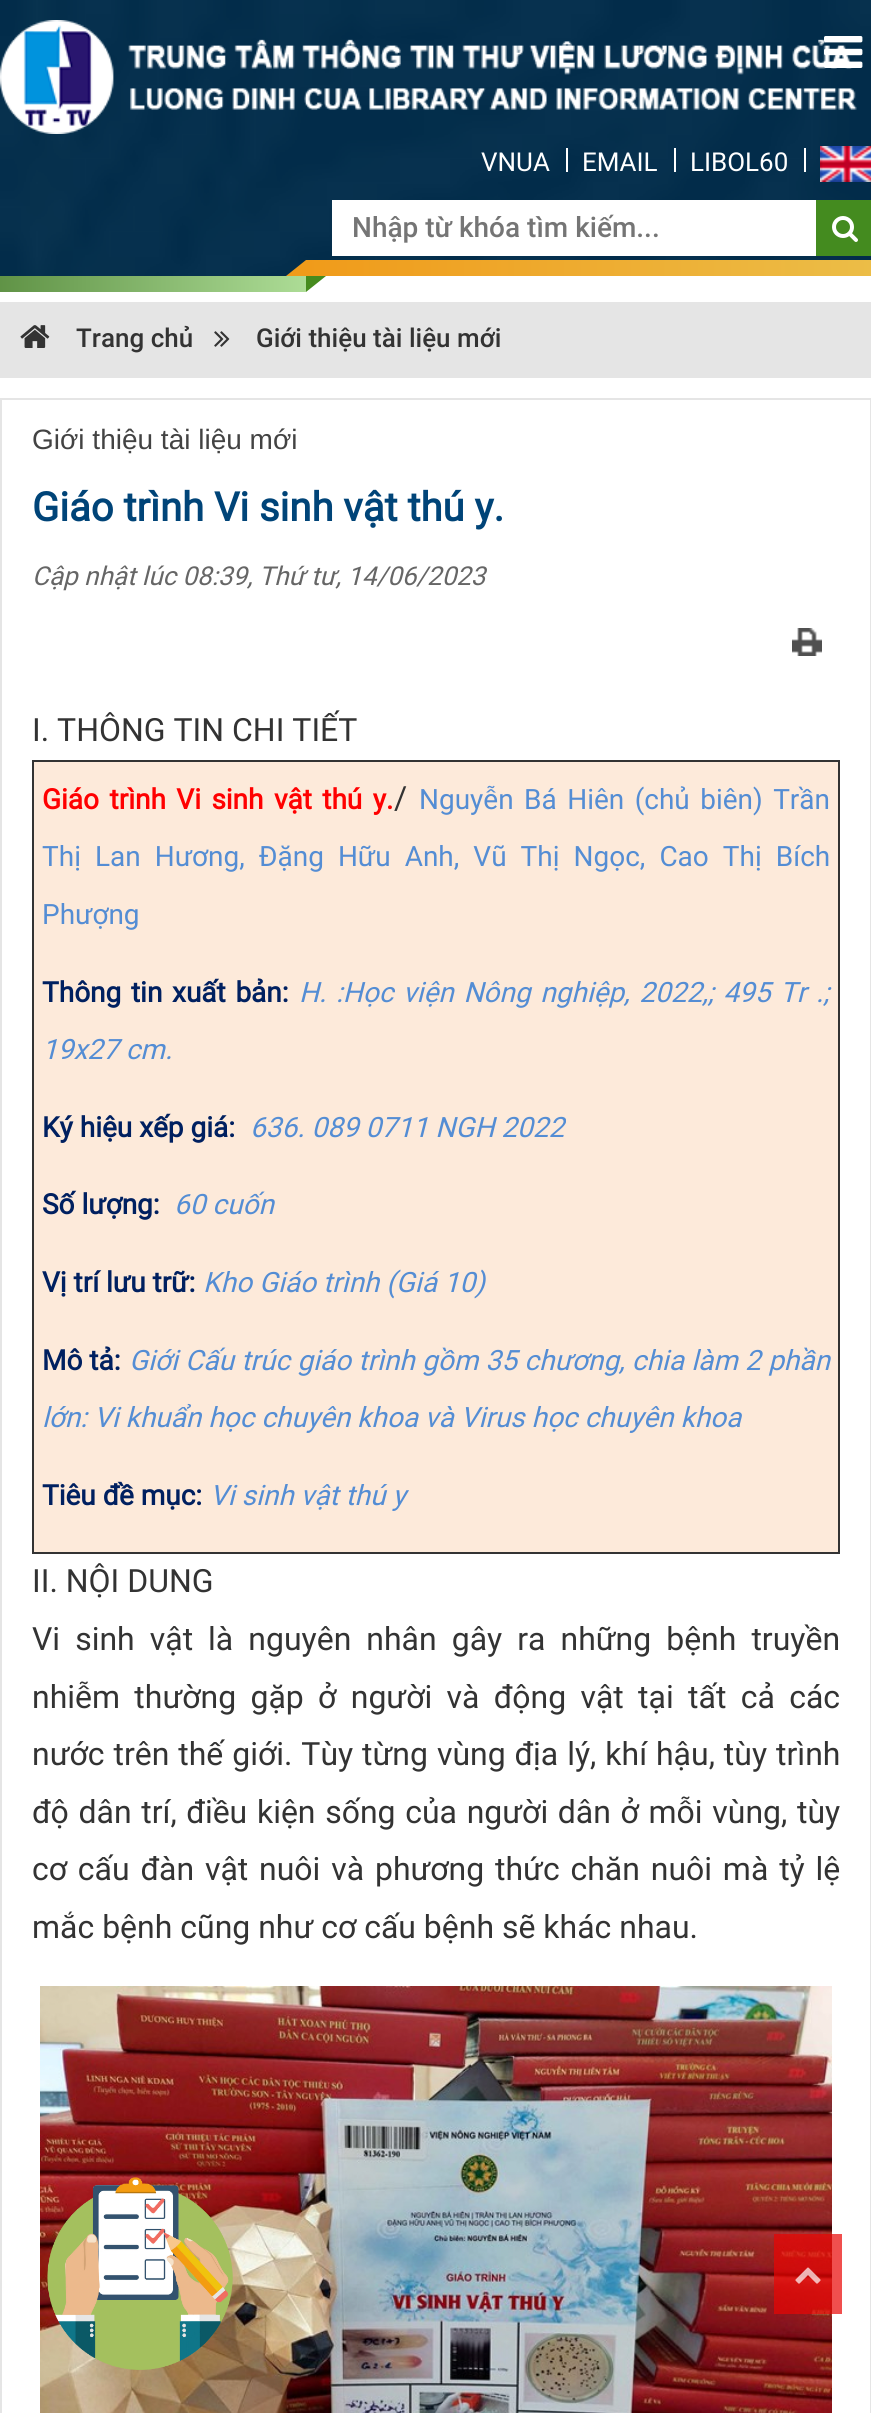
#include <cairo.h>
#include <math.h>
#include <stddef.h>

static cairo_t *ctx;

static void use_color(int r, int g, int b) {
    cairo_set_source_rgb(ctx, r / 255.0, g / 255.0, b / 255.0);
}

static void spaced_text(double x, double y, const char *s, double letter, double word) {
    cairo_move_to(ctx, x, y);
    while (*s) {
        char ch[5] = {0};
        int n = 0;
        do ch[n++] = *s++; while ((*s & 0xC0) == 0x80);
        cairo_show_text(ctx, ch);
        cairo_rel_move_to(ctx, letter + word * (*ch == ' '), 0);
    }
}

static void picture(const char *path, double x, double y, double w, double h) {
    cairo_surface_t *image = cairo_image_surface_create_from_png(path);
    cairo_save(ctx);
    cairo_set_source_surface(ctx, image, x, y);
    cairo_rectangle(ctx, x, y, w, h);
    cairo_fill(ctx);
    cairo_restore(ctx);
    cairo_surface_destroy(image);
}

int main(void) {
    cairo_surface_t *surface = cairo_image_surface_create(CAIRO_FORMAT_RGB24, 871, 2413);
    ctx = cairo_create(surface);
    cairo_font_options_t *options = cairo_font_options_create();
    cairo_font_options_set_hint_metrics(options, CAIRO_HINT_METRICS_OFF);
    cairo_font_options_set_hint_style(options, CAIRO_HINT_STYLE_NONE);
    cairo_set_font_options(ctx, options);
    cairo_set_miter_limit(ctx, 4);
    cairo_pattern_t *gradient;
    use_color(255, 255, 255);
    cairo_paint(ctx);
    picture("img2.png", 0, 0, 871, 276);
    picture("img3.png", 0, 20, 857, 114);
    picture("img1.png", 824, 36, 39, 32);
    cairo_select_font_face(ctx, "Roboto", CAIRO_FONT_SLANT_NORMAL, CAIRO_FONT_WEIGHT_NORMAL);
    cairo_set_font_size(ctx, 26);
    use_color(255, 255, 255);
    cairo_move_to(ctx, 481, 171);
    cairo_show_text(ctx, "VNUA");
    cairo_rectangle(ctx, 566, 148, 2, 24);
    cairo_fill(ctx);
    cairo_move_to(ctx, 582, 171);
    cairo_show_text(ctx, "EMAIL");
    cairo_rectangle(ctx, 674, 148, 2, 24);
    cairo_fill(ctx);
    cairo_move_to(ctx, 690, 171);
    cairo_show_text(ctx, "LIBOL60");
    cairo_rectangle(ctx, 804, 148, 2, 24);
    cairo_fill(ctx);
    picture("img4.png", 820, 146, 51, 36);
    cairo_rectangle(ctx, 332, 200, 484, 56);
    cairo_fill(ctx);
    cairo_select_font_face(ctx, "Roboto Medium", CAIRO_FONT_SLANT_NORMAL, CAIRO_FONT_WEIGHT_NORMAL);
    cairo_set_font_size(ctx, 28);
    use_color(117, 117, 117);
    cairo_move_to(ctx, 352, 237);
    cairo_show_text(ctx, "Nhập từ khóa tìm kiếm...");
    use_color(68, 139, 31);
    cairo_rectangle(ctx, 816, 200, 55, 56);
    cairo_fill(ctx);
    picture("img5.png", 832, 216, 26, 26);
    cairo_rectangle(ctx, 1, 399, 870, 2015);
    use_color(229, 229, 229);
    cairo_stroke(ctx);
    picture("img10.png", 40, 1986, 792, 427);
    picture("img6.png", 47, 2177, 186, 193);
    gradient = cairo_pattern_create_linear(306, 268, 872, 268);
    cairo_pattern_add_color_stop_rgba(gradient, 0, 0.941, 0.608, 0.102, 1);
    cairo_pattern_add_color_stop_rgba(gradient, 1, 0.925, 0.741, 0.278, 1);
    cairo_set_source(ctx, gradient);
    cairo_pattern_destroy(gradient);
    cairo_rectangle(ctx, 306, 260, 565, 16);
    cairo_fill(ctx);
    use_color(240, 155, 26);
    cairo_new_path(ctx);
    cairo_move_to(ctx, 306, 260);
    cairo_line_to(ctx, 306, 276);
    cairo_line_to(ctx, 286, 276);
    cairo_close_path(ctx);
    cairo_fill(ctx);
    gradient = cairo_pattern_create_linear(0, 284, 306, 284);
    cairo_pattern_add_color_stop_rgba(gradient, 0, 0.376, 0.576, 0.275, 1);
    cairo_pattern_add_color_stop_rgba(gradient, 1, 0.678, 0.863, 0.588, 1);
    cairo_set_source(ctx, gradient);
    cairo_pattern_destroy(gradient);
    cairo_rectangle(ctx, 0, 276, 306, 16);
    cairo_fill(ctx);
    use_color(70, 139, 30);
    cairo_new_path(ctx);
    cairo_move_to(ctx, 306, 292);
    cairo_line_to(ctx, 306, 276);
    cairo_line_to(ctx, 326, 276);
    cairo_close_path(ctx);
    cairo_fill(ctx);
    use_color(229, 229, 229);
    cairo_rectangle(ctx, 0, 302, 871, 76);
    cairo_fill(ctx);
    picture("img7.png", 20, 325, 30, 23);
    cairo_set_font_size(ctx, 26);
    use_color(51, 51, 51);
    cairo_move_to(ctx, 76, 347);
    cairo_show_text(ctx, "Trang chủ");
    picture("img8.png", 214, 331, 16, 16);
    cairo_move_to(ctx, 256, 347);
    cairo_show_text(ctx, "Giới thiệu tài liệu mới");
    cairo_select_font_face(ctx, "Liberation Sans", CAIRO_FONT_SLANT_NORMAL, CAIRO_FONT_WEIGHT_NORMAL);
    cairo_set_font_size(ctx, 28);
    use_color(67, 67, 67);
    cairo_move_to(ctx, 32, 449);
    cairo_show_text(ctx, "Giới thiệu tài liệu mới");
    cairo_select_font_face(ctx, "Roboto", CAIRO_FONT_SLANT_NORMAL, CAIRO_FONT_WEIGHT_BOLD);
    cairo_set_font_size(ctx, 40);
    use_color(0, 68, 120);
    cairo_move_to(ctx, 32, 521);
    cairo_show_text(ctx, "Giáo trình Vi sinh vật thú y.");
    cairo_select_font_face(ctx, "Roboto", CAIRO_FONT_SLANT_ITALIC, CAIRO_FONT_WEIGHT_NORMAL);
    cairo_set_font_size(ctx, 26);
    use_color(102, 102, 102);
    cairo_move_to(ctx, 32, 585);
    cairo_show_text(ctx, "Cập nhật lúc 08:39, Thứ tư, 14/06/2023");
    picture("img9.png", 792, 628, 30, 28);
    cairo_select_font_face(ctx, "Roboto", CAIRO_FONT_SLANT_NORMAL, CAIRO_FONT_WEIGHT_NORMAL);
    cairo_set_font_size(ctx, 32);
    use_color(51, 51, 51);
    cairo_move_to(ctx, 32, 741);
    cairo_show_text(ctx, "I. THÔNG TIN CHI TIẾT");
    use_color(253, 234, 218);
    cairo_rectangle(ctx, 34, 762, 804, 790);
    cairo_fill(ctx);
    use_color(51, 51, 51);
    cairo_rectangle(ctx, 32, 760, 808, 2);
    cairo_fill(ctx);
    cairo_rectangle(ctx, 838, 760, 2, 794);
    cairo_fill(ctx);
    cairo_rectangle(ctx, 32, 1552, 808, 2);
    cairo_fill(ctx);
    cairo_rectangle(ctx, 32, 760, 2, 794);
    cairo_fill(ctx);
    cairo_select_font_face(ctx, "Roboto", CAIRO_FONT_SLANT_NORMAL, CAIRO_FONT_WEIGHT_BOLD);
    cairo_set_font_size(ctx, 28);
    use_color(255, 0, 0);
    spaced_text(42, 809, "Giáo trình Vi sinh vật thú y.", 0, 3.5);
    cairo_select_font_face(ctx, "Roboto", CAIRO_FONT_SLANT_NORMAL, CAIRO_FONT_WEIGHT_NORMAL);
    cairo_set_font_size(ctx, 32);
    use_color(51, 51, 51);
    cairo_move_to(ctx, 394, 809);
    cairo_show_text(ctx, "/");
    cairo_set_font_size(ctx, 28);
    use_color(84, 141, 212);
    spaced_text(419, 809, "Nguyễn Bá Hiên (chủ biên) Trần", 0, 3.5);
    spaced_text(42, 866, "Thị Lan Hương, Đặng Hữu Anh, Vũ Thị Ngọc, Cao Thị Bích", 0, 7.1);
    cairo_move_to(ctx, 42, 924);
    cairo_show_text(ctx, "Phượng");
    cairo_select_font_face(ctx, "Roboto", CAIRO_FONT_SLANT_NORMAL, CAIRO_FONT_WEIGHT_BOLD);
    use_color(0, 32, 96);
    spaced_text(42, 1002, "Thông tin xuất bản:", 0, 2.75);
    cairo_select_font_face(ctx, "Roboto", CAIRO_FONT_SLANT_ITALIC, CAIRO_FONT_WEIGHT_NORMAL);
    use_color(84, 141, 212);
    spaced_text(299, 1002, "H. :Học viện Nông nghiệp, 2022,; 495 Tr .;", 0, 2.75);
    cairo_move_to(ctx, 42, 1059);
    cairo_show_text(ctx, "19x27 cm.");
    cairo_select_font_face(ctx, "Roboto", CAIRO_FONT_SLANT_NORMAL, CAIRO_FONT_WEIGHT_BOLD);
    use_color(0, 32, 96);
    cairo_move_to(ctx, 42, 1137);
    cairo_show_text(ctx, "Ký hiệu xếp giá:");
    cairo_select_font_face(ctx, "Roboto", CAIRO_FONT_SLANT_ITALIC, CAIRO_FONT_WEIGHT_NORMAL);
    use_color(84, 141, 212);
    cairo_move_to(ctx, 250, 1137);
    cairo_show_text(ctx, "636. 089 0711 NGH 2022");
    cairo_select_font_face(ctx, "Roboto", CAIRO_FONT_SLANT_NORMAL, CAIRO_FONT_WEIGHT_BOLD);
    use_color(0, 32, 96);
    cairo_move_to(ctx, 42, 1214);
    cairo_show_text(ctx, "Số lượng:");
    cairo_select_font_face(ctx, "Roboto", CAIRO_FONT_SLANT_ITALIC, CAIRO_FONT_WEIGHT_NORMAL);
    use_color(84, 141, 212);
    cairo_move_to(ctx, 174, 1214);
    cairo_show_text(ctx, "60 cuốn");
    cairo_select_font_face(ctx, "Roboto", CAIRO_FONT_SLANT_NORMAL, CAIRO_FONT_WEIGHT_BOLD);
    use_color(0, 32, 96);
    cairo_move_to(ctx, 42, 1292);
    cairo_show_text(ctx, "Vị trí lưu trữ:");
    cairo_select_font_face(ctx, "Roboto", CAIRO_FONT_SLANT_ITALIC, CAIRO_FONT_WEIGHT_NORMAL);
    use_color(84, 141, 212);
    cairo_move_to(ctx, 203, 1292);
    cairo_show_text(ctx, "Kho Giáo trình (Giá 10)");
    cairo_select_font_face(ctx, "Roboto", CAIRO_FONT_SLANT_NORMAL, CAIRO_FONT_WEIGHT_BOLD);
    use_color(0, 32, 96);
    cairo_move_to(ctx, 42, 1370);
    cairo_show_text(ctx, "Mô tả:");
    cairo_select_font_face(ctx, "Roboto", CAIRO_FONT_SLANT_ITALIC, CAIRO_FONT_WEIGHT_NORMAL);
    use_color(84, 141, 212);
    spaced_text(129, 1370, "Giới Cấu trúc giáo trình gồm 35 chương, chia làm 2 phần", 0, 0.4);
    cairo_move_to(ctx, 42, 1427);
    cairo_show_text(ctx, "lớn: Vi khuẩn học chuyên khoa và Virus học chuyên khoa");
    cairo_select_font_face(ctx, "Roboto", CAIRO_FONT_SLANT_NORMAL, CAIRO_FONT_WEIGHT_BOLD);
    use_color(0, 32, 96);
    cairo_move_to(ctx, 42, 1505);
    cairo_show_text(ctx, "Tiêu đề mục:");
    cairo_select_font_face(ctx, "Roboto", CAIRO_FONT_SLANT_ITALIC, CAIRO_FONT_WEIGHT_NORMAL);
    use_color(84, 141, 212);
    cairo_move_to(ctx, 210, 1505);
    cairo_show_text(ctx, "Vi sinh vật thú y");
    cairo_select_font_face(ctx, "Roboto", CAIRO_FONT_SLANT_NORMAL, CAIRO_FONT_WEIGHT_NORMAL);
    cairo_set_font_size(ctx, 32);
    use_color(51, 51, 51);
    cairo_move_to(ctx, 32, 1592);
    cairo_show_text(ctx, "II. NỘI DUNG");
    spaced_text(32, 1650, "Vi sinh vật là nguyên nhân gây ra những bệnh truyền", 0, 7.1);
    spaced_text(32, 1708, "nhiễm thường gặp ở người và động vật tại tất cả các", 0, 6.4);
    spaced_text(32, 1765, "nước trên thế giới. Tùy từng vùng địa lý, khí hậu, tùy trình", 0, 1);
    spaced_text(32, 1823, "độ dân trí, điều kiện sống của người dân ở mỗi vùng, tùy", 0, 1.75);
    spaced_text(32, 1880, "cơ cấu đàn vật nuôi và phương thức chăn nuôi mà tỷ lệ", 0, 2.9);
    cairo_move_to(ctx, 32, 1938);
    cairo_show_text(ctx, "mắc bệnh cũng như cơ cấu bệnh sẽ khác nhau.");
    cairo_set_source_rgba(ctx, 0.918, 0.02, 0.016, 0.7);
    cairo_rectangle(ctx, 774, 2234, 68, 80);
    cairo_fill(ctx);
    picture("img11.png", 795, 2267, 26, 17);
    cairo_surface_write_to_png(surface, "result.png");
    cairo_font_options_destroy(options);
    cairo_destroy(ctx);
    cairo_surface_destroy(surface);
    return 0;
}
